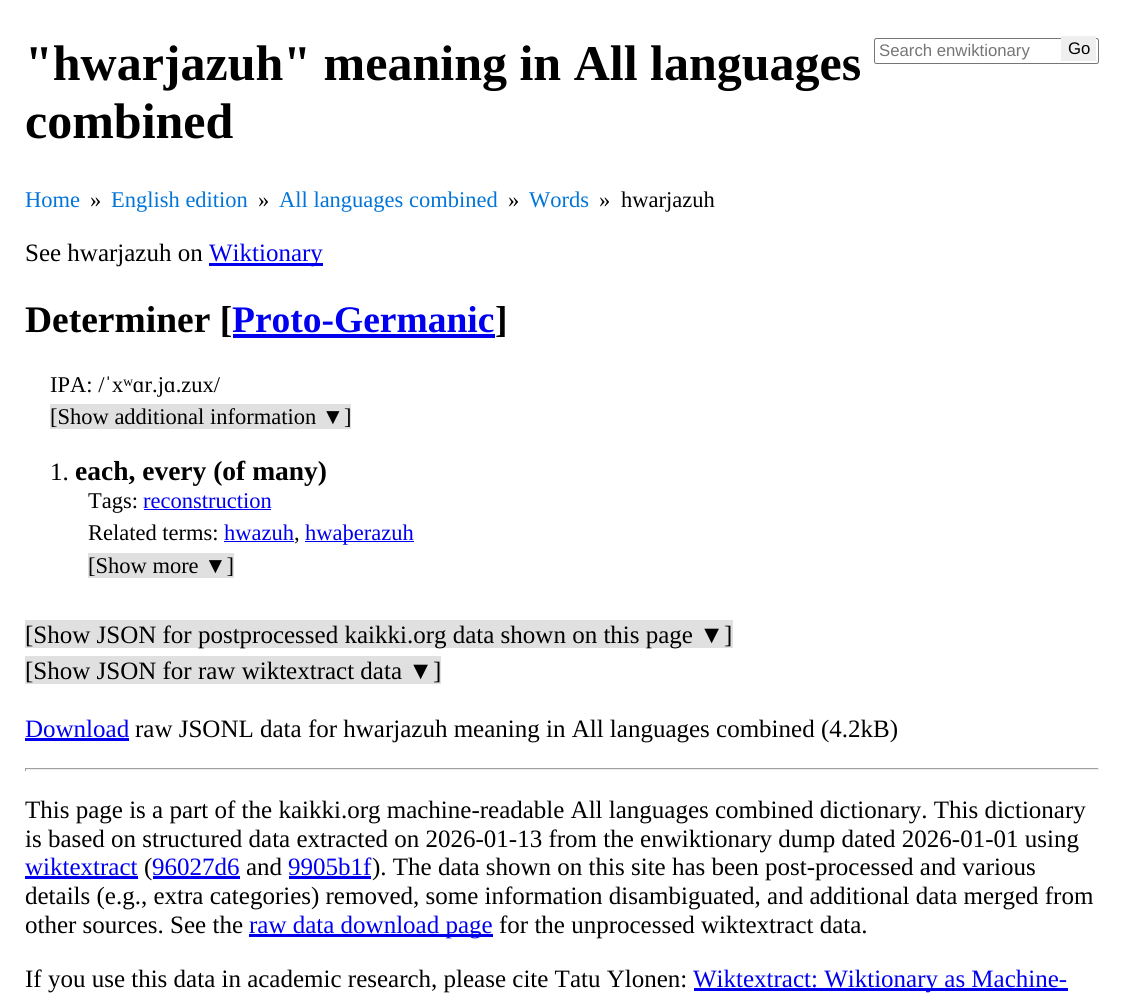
#include <cairo.h>
#include <math.h>
#include <stddef.h>

static cairo_t *ctx;

static void use_color(int r, int g, int b) {
    cairo_set_source_rgb(ctx, r / 255.0, g / 255.0, b / 255.0);
}

static void round_rect(double x, double y, double w, double h, double r) {
    cairo_new_sub_path(ctx);
    cairo_arc(ctx, x + w - r, y + h - r, r, 0, M_PI / 2);
    cairo_arc(ctx, x + r, y + h - r, r, M_PI / 2, M_PI);
    cairo_arc(ctx, x + r, y + r, r, M_PI, 1.5 * M_PI);
    cairo_arc(ctx, x + w - r, y + r, r, 1.5 * M_PI, 2 * M_PI);
    cairo_close_path(ctx);
}

int main(void) {
    cairo_surface_t *surface = cairo_image_surface_create(CAIRO_FORMAT_RGB24, 1123, 996);
    ctx = cairo_create(surface);
    cairo_font_options_t *options = cairo_font_options_create();
    cairo_font_options_set_hint_metrics(options, CAIRO_HINT_METRICS_OFF);
    cairo_font_options_set_hint_style(options, CAIRO_HINT_STYLE_NONE);
    cairo_set_font_options(ctx, options);
    cairo_set_miter_limit(ctx, 4);
    use_color(255, 255, 255);
    cairo_paint(ctx);
    cairo_select_font_face(ctx, "Liberation Serif", CAIRO_FONT_SLANT_NORMAL, CAIRO_FONT_WEIGHT_BOLD);
    cairo_set_font_size(ctx, 50);
    use_color(0, 0, 0);
    cairo_move_to(ctx, 25, 80);
    cairo_show_text(ctx, "\"hwarjazuh\" meaning in All languages");
    cairo_move_to(ctx, 25, 138);
    cairo_show_text(ctx, "combined");
    round_rect(874.5, 38.5, 224, 25, 2);
    use_color(118, 118, 118);
    cairo_set_line_width(ctx, 1);
    cairo_stroke(ctx);
    cairo_select_font_face(ctx, "Liberation Sans", CAIRO_FONT_SLANT_NORMAL, CAIRO_FONT_WEIGHT_NORMAL);
    cairo_set_font_size(ctx, 16.75);
    use_color(117, 117, 117);
    cairo_move_to(ctx, 879, 56);
    cairo_show_text(ctx, "Search enwiktionary");
    use_color(239, 239, 239);
    cairo_rectangle(ctx, 1061, 36, 35, 25);
    cairo_fill(ctx);
    use_color(0, 0, 0);
    cairo_move_to(ctx, 1068, 54);
    cairo_show_text(ctx, "Go");
    cairo_select_font_face(ctx, "Liberation Serif", CAIRO_FONT_SLANT_NORMAL, CAIRO_FONT_WEIGHT_NORMAL);
    cairo_set_font_size(ctx, 22.5);
    use_color(2, 117, 216);
    cairo_move_to(ctx, 25, 207);
    cairo_show_text(ctx, "Home");
    use_color(0, 0, 0);
    cairo_move_to(ctx, 90, 207);
    cairo_show_text(ctx, "»");
    use_color(2, 117, 216);
    cairo_move_to(ctx, 111, 207);
    cairo_show_text(ctx, "English edition");
    use_color(0, 0, 0);
    cairo_move_to(ctx, 258, 207);
    cairo_show_text(ctx, "»");
    use_color(2, 117, 216);
    cairo_move_to(ctx, 279, 207);
    cairo_show_text(ctx, "All languages combined");
    use_color(0, 0, 0);
    cairo_move_to(ctx, 508, 207);
    cairo_show_text(ctx, "»");
    use_color(2, 117, 216);
    cairo_move_to(ctx, 529, 207);
    cairo_show_text(ctx, "Words");
    use_color(0, 0, 0);
    cairo_move_to(ctx, 599, 207);
    cairo_show_text(ctx, "»");
    cairo_move_to(ctx, 621, 207);
    cairo_show_text(ctx, "hwarjazuh");
    cairo_set_font_size(ctx, 25);
    cairo_move_to(ctx, 25, 261);
    cairo_show_text(ctx, "See hwarjazuh on");
    use_color(0, 0, 238);
    cairo_rectangle(ctx, 209, 263, 114, 3);
    cairo_fill(ctx);
    cairo_move_to(ctx, 209, 261);
    cairo_show_text(ctx, "Wiktionary");
    cairo_select_font_face(ctx, "Liberation Serif", CAIRO_FONT_SLANT_NORMAL, CAIRO_FONT_WEIGHT_BOLD);
    cairo_set_font_size(ctx, 37.5);
    use_color(0, 0, 0);
    cairo_move_to(ctx, 25, 332);
    cairo_show_text(ctx, "Determiner [");
    use_color(0, 0, 238);
    cairo_move_to(ctx, 232, 332);
    cairo_show_text(ctx, "Proto-Germanic");
    cairo_rectangle(ctx, 233, 334, 262, 4);
    cairo_fill(ctx);
    use_color(0, 0, 0);
    cairo_move_to(ctx, 495, 332);
    cairo_show_text(ctx, "]");
    cairo_select_font_face(ctx, "Liberation Serif", CAIRO_FONT_SLANT_NORMAL, CAIRO_FONT_WEIGHT_NORMAL);
    cairo_set_font_size(ctx, 22.5);
    cairo_move_to(ctx, 50, 392);
    cairo_show_text(ctx, "IPA: /ˈxʷɑr.jɑ.zux/");
    use_color(224, 224, 224);
    cairo_rectangle(ctx, 50, 404, 301, 25);
    cairo_fill(ctx);
    use_color(0, 0, 0);
    cairo_move_to(ctx, 50, 424);
    cairo_show_text(ctx, "[Show additional information ▼]");
    cairo_set_font_size(ctx, 25);
    cairo_move_to(ctx, 50, 480);
    cairo_show_text(ctx, "1.");
    cairo_select_font_face(ctx, "Liberation Serif", CAIRO_FONT_SLANT_NORMAL, CAIRO_FONT_WEIGHT_BOLD);
    cairo_set_font_size(ctx, 27.5);
    cairo_move_to(ctx, 75, 480);
    cairo_show_text(ctx, "each, every (of many)");
    cairo_select_font_face(ctx, "Liberation Serif", CAIRO_FONT_SLANT_NORMAL, CAIRO_FONT_WEIGHT_NORMAL);
    cairo_set_font_size(ctx, 22.5);
    cairo_move_to(ctx, 88, 508);
    cairo_show_text(ctx, "Tags:");
    use_color(0, 0, 238);
    cairo_move_to(ctx, 143, 508);
    cairo_show_text(ctx, "reconstruction");
    cairo_rectangle(ctx, 144, 509, 127, 1);
    cairo_fill(ctx);
    use_color(0, 0, 0);
    cairo_move_to(ctx, 88, 540);
    cairo_show_text(ctx, "Related terms:");
    use_color(0, 0, 238);
    cairo_move_to(ctx, 224, 540);
    cairo_show_text(ctx, "hwazuh");
    cairo_rectangle(ctx, 224, 541, 70, 1);
    cairo_fill(ctx);
    use_color(0, 0, 0);
    cairo_move_to(ctx, 294, 540);
    cairo_show_text(ctx, ",");
    use_color(0, 0, 238);
    cairo_rectangle(ctx, 305, 541, 109, 1);
    cairo_fill(ctx);
    cairo_move_to(ctx, 305, 540);
    cairo_show_text(ctx, "hwaþerazuh");
    use_color(224, 224, 224);
    cairo_rectangle(ctx, 88, 553, 146, 25);
    cairo_fill(ctx);
    use_color(0, 0, 0);
    cairo_move_to(ctx, 88, 573);
    cairo_show_text(ctx, "[Show more ▼]");
    use_color(224, 224, 224);
    cairo_rectangle(ctx, 25, 620, 708, 28);
    cairo_fill(ctx);
    cairo_set_font_size(ctx, 25);
    use_color(0, 0, 0);
    cairo_move_to(ctx, 25, 643);
    cairo_show_text(ctx, "[Show JSON for postprocessed kaikki.org data shown on this page ▼]");
    use_color(224, 224, 224);
    cairo_rectangle(ctx, 25, 656, 416, 28);
    cairo_fill(ctx);
    use_color(0, 0, 0);
    cairo_move_to(ctx, 25, 679);
    cairo_show_text(ctx, "[Show JSON for raw wiktextract data ▼]");
    use_color(0, 0, 238);
    cairo_move_to(ctx, 25, 737);
    cairo_show_text(ctx, "Download");
    cairo_rectangle(ctx, 25, 738, 104, 3);
    cairo_fill(ctx);
    use_color(0, 0, 0);
    cairo_move_to(ctx, 135, 737);
    cairo_show_text(ctx, "raw JSONL data for hwarjazuh meaning in All languages combined (4.2kB)");
    use_color(159, 159, 159);
    cairo_rectangle(ctx, 25, 768, 1074, 1);
    cairo_fill(ctx);
    use_color(238, 238, 238);
    cairo_rectangle(ctx, 1098, 768, 1, 3);
    cairo_fill(ctx);
    cairo_rectangle(ctx, 25, 769, 1074, 1);
    cairo_fill(ctx);
    use_color(159, 159, 159);
    cairo_rectangle(ctx, 25, 768, 1, 3);
    cairo_fill(ctx);
    use_color(0, 0, 0);
    cairo_move_to(ctx, 25, 818);
    cairo_show_text(ctx, "This page is a part of the kaikki.org machine-readable All languages combined dictionary. This dictionary");
    cairo_move_to(ctx, 25, 847);
    cairo_show_text(ctx, "is based on structured data extracted on 2026-01-13 from the enwiktionary dump dated 2026-01-01 using");
    use_color(0, 0, 238);
    cairo_move_to(ctx, 25, 875);
    cairo_show_text(ctx, "wiktextract");
    cairo_rectangle(ctx, 25, 876, 113, 3);
    cairo_fill(ctx);
    use_color(0, 0, 0);
    cairo_move_to(ctx, 144, 875);
    cairo_show_text(ctx, "(");
    use_color(0, 0, 238);
    cairo_move_to(ctx, 152, 875);
    cairo_show_text(ctx, "96027d6");
    cairo_rectangle(ctx, 153, 876, 87, 3);
    cairo_fill(ctx);
    use_color(0, 0, 0);
    cairo_move_to(ctx, 246, 875);
    cairo_show_text(ctx, "and");
    use_color(0, 0, 238);
    cairo_move_to(ctx, 288, 875);
    cairo_show_text(ctx, "9905b1f");
    cairo_rectangle(ctx, 289, 876, 82, 3);
    cairo_fill(ctx);
    use_color(0, 0, 0);
    cairo_move_to(ctx, 372, 875);
    cairo_show_text(ctx, "). The data shown on this site has been post-processed and various");
    cairo_move_to(ctx, 25, 904);
    cairo_show_text(ctx, "details (e.g., extra categories) removed, some information disambiguated, and additional data merged from");
    cairo_move_to(ctx, 25, 933);
    cairo_show_text(ctx, "other sources. See the");
    use_color(0, 0, 238);
    cairo_rectangle(ctx, 249, 934, 244, 3);
    cairo_fill(ctx);
    cairo_move_to(ctx, 249, 933);
    cairo_show_text(ctx, "raw data download page");
    use_color(0, 0, 0);
    cairo_move_to(ctx, 499, 933);
    cairo_show_text(ctx, "for the unprocessed wiktextract data.");
    cairo_move_to(ctx, 25, 987);
    cairo_show_text(ctx, "If you use this data in academic research, please cite Tatu Ylonen:");
    use_color(0, 0, 238);
    cairo_rectangle(ctx, 694, 988, 374, 3);
    cairo_fill(ctx);
    cairo_move_to(ctx, 693, 987);
    cairo_show_text(ctx, "Wiktextract: Wiktionary as Machine-");
    cairo_surface_write_to_png(surface, "result.png");
    cairo_font_options_destroy(options);
    cairo_destroy(ctx);
    cairo_surface_destroy(surface);
    return 0;
}
